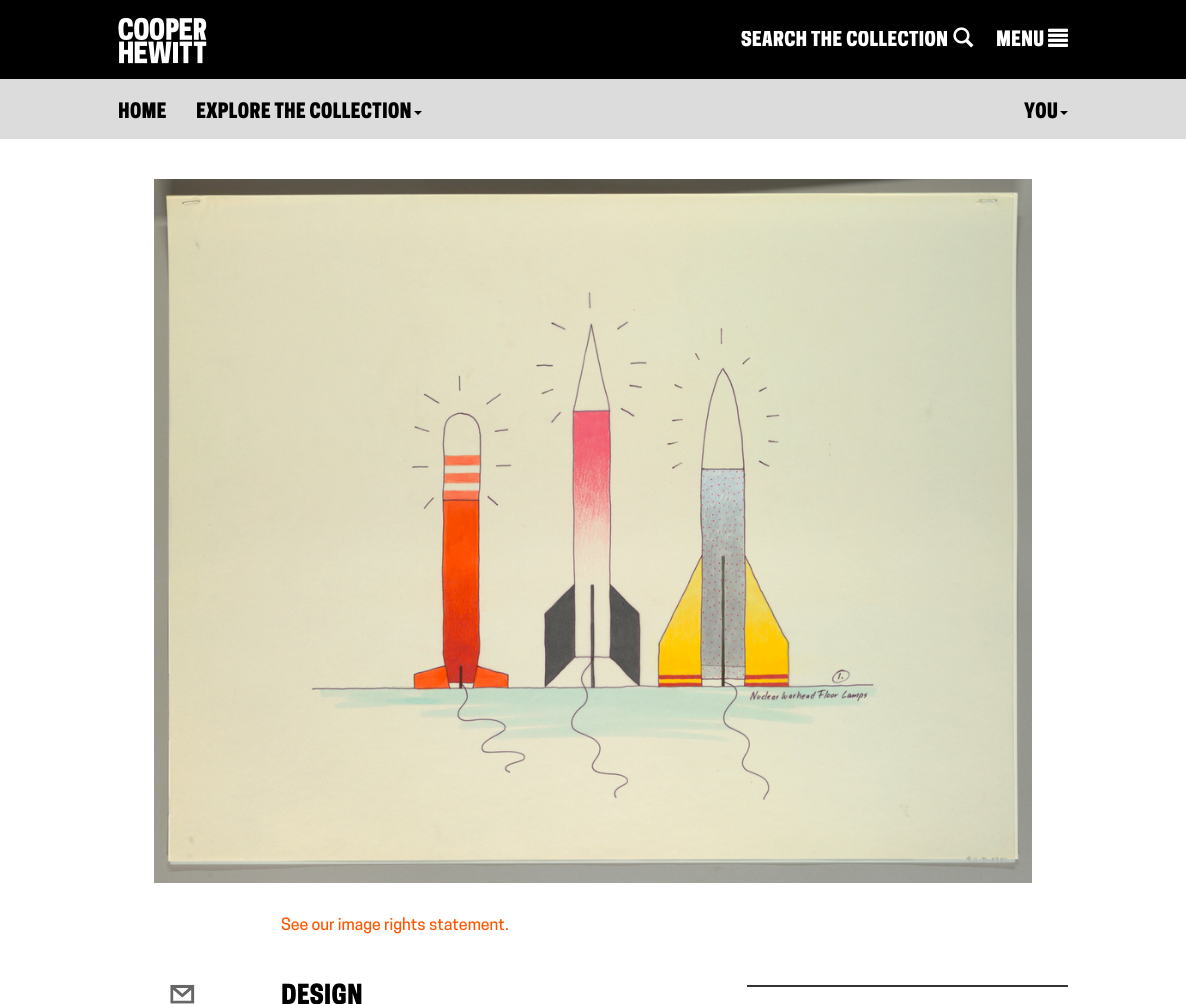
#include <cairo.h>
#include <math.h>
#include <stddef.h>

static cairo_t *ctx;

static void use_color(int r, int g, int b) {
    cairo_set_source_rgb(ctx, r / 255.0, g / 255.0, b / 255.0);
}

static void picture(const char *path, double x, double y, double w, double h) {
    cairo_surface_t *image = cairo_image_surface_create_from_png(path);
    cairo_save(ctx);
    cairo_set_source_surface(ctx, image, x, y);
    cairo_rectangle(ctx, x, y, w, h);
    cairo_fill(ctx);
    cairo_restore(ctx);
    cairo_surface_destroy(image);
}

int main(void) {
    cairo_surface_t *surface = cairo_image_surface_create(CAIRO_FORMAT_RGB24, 1186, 1004);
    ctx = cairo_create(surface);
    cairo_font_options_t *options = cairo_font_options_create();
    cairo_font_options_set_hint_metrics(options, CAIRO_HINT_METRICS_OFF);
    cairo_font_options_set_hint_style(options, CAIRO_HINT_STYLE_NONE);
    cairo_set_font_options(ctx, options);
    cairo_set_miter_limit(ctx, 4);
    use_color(255, 255, 255);
    cairo_paint(ctx);
    use_color(0, 0, 0);
    cairo_rectangle(ctx, 0, 0, 1186, 79);
    cairo_fill(ctx);
    picture("img1.png", 118, 17, 89, 47);
    cairo_save(ctx);
    cairo_rectangle(ctx, 702, 31, 246, 20);
    cairo_clip(ctx);
    cairo_select_font_face(ctx, "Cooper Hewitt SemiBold", CAIRO_FONT_SLANT_NORMAL, CAIRO_FONT_WEIGHT_NORMAL);
    cairo_set_font_size(ctx, 20);
    use_color(255, 255, 255);
    cairo_move_to(ctx, 741, 46);
    cairo_show_text(ctx, "SEARCH THE COLLECTION");
    cairo_restore(ctx);
    picture("img2.png", 953, 27, 21, 21);
    cairo_select_font_face(ctx, "Cooper Hewitt SemiBold", CAIRO_FONT_SLANT_NORMAL, CAIRO_FONT_WEIGHT_NORMAL);
    cairo_set_font_size(ctx, 20);
    use_color(255, 255, 255);
    cairo_move_to(ctx, 996, 46);
    cairo_show_text(ctx, "MENU");
    picture("img3.png", 1048, 28, 20, 19);
    use_color(220, 220, 220);
    cairo_rectangle(ctx, 0, 79, 1186, 60);
    cairo_fill(ctx);
    use_color(0, 0, 0);
    cairo_move_to(ctx, 118, 118);
    cairo_show_text(ctx, "HOME");
    cairo_move_to(ctx, 196, 118);
    cairo_show_text(ctx, "EXPLORE THE COLLECTION");
    cairo_new_path(ctx);
    cairo_move_to(ctx, 414, 111);
    cairo_line_to(ctx, 422, 111);
    cairo_line_to(ctx, 418, 115);
    cairo_close_path(ctx);
    cairo_fill(ctx);
    cairo_move_to(ctx, 1024, 118);
    cairo_show_text(ctx, "YOU");
    cairo_new_path(ctx);
    cairo_move_to(ctx, 1060, 111);
    cairo_line_to(ctx, 1068, 111);
    cairo_line_to(ctx, 1064, 115);
    cairo_close_path(ctx);
    cairo_fill(ctx);
    picture("img4.png", 154, 179, 878, 704);
    cairo_select_font_face(ctx, "Cooper Hewitt Medium", CAIRO_FONT_SLANT_NORMAL, CAIRO_FONT_WEIGHT_NORMAL);
    cairo_set_font_size(ctx, 16);
    use_color(255, 87, 0);
    cairo_move_to(ctx, 281, 930);
    cairo_show_text(ctx, "See our image rights statement.");
    picture("img5.png", 170, 984, 25, 20);
    cairo_select_font_face(ctx, "Cooper Hewitt SemiBold", CAIRO_FONT_SLANT_NORMAL, CAIRO_FONT_WEIGHT_NORMAL);
    cairo_set_font_size(ctx, 26);
    use_color(0, 0, 0);
    cairo_move_to(ctx, 281, 1004);
    cairo_show_text(ctx, "DESIGN");
    use_color(51, 51, 51);
    cairo_rectangle(ctx, 747, 985, 321, 2);
    cairo_fill(ctx);
    cairo_surface_write_to_png(surface, "result.png");
    cairo_font_options_destroy(options);
    cairo_destroy(ctx);
    cairo_surface_destroy(surface);
    return 0;
}
